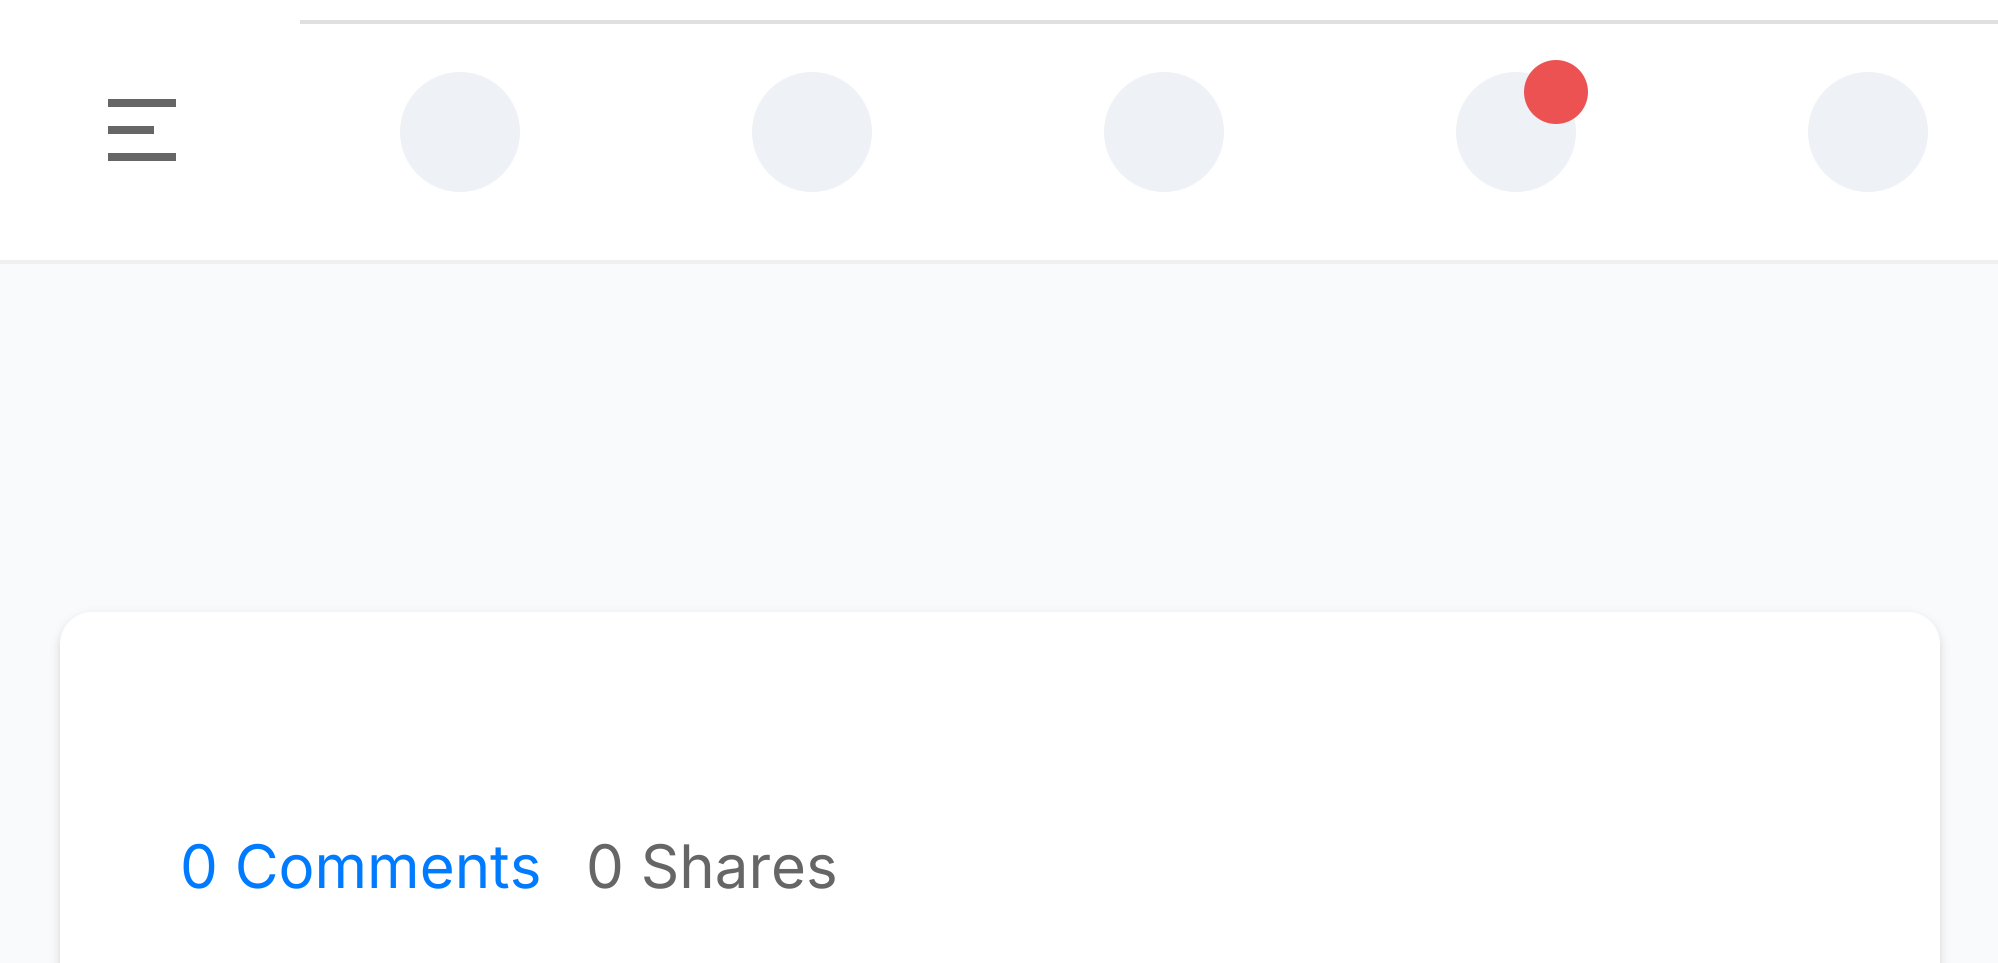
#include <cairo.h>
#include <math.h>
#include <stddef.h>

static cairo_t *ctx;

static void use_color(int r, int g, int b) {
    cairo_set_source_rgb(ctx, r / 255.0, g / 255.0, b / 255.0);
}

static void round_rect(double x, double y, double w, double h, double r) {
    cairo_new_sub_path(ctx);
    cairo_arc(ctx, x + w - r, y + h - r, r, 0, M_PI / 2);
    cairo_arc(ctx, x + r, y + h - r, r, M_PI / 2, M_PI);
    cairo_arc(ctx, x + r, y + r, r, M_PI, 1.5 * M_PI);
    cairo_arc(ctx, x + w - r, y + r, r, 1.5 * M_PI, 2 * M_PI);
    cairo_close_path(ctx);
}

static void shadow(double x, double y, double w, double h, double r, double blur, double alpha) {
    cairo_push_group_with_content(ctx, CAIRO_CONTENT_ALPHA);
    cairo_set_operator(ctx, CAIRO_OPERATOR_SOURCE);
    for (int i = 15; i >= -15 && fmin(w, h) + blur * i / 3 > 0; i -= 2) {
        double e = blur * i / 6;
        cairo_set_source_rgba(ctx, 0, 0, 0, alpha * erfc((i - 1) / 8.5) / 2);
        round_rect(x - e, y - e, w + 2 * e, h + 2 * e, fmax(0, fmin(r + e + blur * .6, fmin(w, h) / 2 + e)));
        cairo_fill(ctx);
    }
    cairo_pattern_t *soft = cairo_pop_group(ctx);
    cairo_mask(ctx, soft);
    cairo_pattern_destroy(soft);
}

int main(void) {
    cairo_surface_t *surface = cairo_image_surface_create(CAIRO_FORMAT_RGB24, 1998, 963);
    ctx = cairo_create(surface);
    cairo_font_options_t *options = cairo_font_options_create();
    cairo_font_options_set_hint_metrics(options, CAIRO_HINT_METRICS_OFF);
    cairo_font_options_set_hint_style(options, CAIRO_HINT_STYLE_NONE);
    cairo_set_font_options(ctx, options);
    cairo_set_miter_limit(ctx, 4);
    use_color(249, 250, 251);
    cairo_paint(ctx);
    use_color(255, 255, 255);
    cairo_rectangle(ctx, 0, 0, 1998, 260);
    cairo_fill(ctx);
    use_color(240, 240, 240);
    cairo_rectangle(ctx, 0, 260, 1998, 4);
    cairo_fill(ctx);
    use_color(102, 102, 102);
    cairo_new_path(ctx);
    cairo_move_to(ctx, 108, 99);
    cairo_line_to(ctx, 176, 99);
    cairo_line_to(ctx, 176, 107);
    cairo_line_to(ctx, 108, 107);
    cairo_close_path(ctx);
    cairo_move_to(ctx, 108, 126);
    cairo_line_to(ctx, 154, 126);
    cairo_line_to(ctx, 154, 134);
    cairo_line_to(ctx, 108, 134);
    cairo_close_path(ctx);
    cairo_move_to(ctx, 108, 153);
    cairo_line_to(ctx, 176, 153);
    cairo_line_to(ctx, 176, 161);
    cairo_line_to(ctx, 108, 161);
    cairo_close_path(ctx);
    cairo_fill(ctx);
    use_color(226, 223, 223);
    cairo_rectangle(ctx, 300, 20, 1698, 4);
    cairo_fill(ctx);
    use_color(238, 241, 245);
    cairo_arc(ctx, 460, 132, 60, 0, 2 * M_PI);
    cairo_fill(ctx);
    cairo_arc(ctx, 812, 132, 60, 0, 2 * M_PI);
    cairo_fill(ctx);
    cairo_arc(ctx, 1164, 132, 60, 0, 2 * M_PI);
    cairo_fill(ctx);
    cairo_arc(ctx, 1516, 132, 60, 0, 2 * M_PI);
    cairo_fill(ctx);
    use_color(236, 82, 82);
    cairo_arc(ctx, 1556, 92, 32, 0, 2 * M_PI);
    cairo_fill(ctx);
    use_color(238, 241, 245);
    cairo_arc(ctx, 1868, 132, 60, 0, 2 * M_PI);
    cairo_fill(ctx);
    use_color(0, 0, 0);
    shadow(60, 616, 1880, 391, 32, 4, 0.06);
    shadow(60, 616, 1880, 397, 32, 6, 0.1);
    use_color(255, 255, 255);
    round_rect(60, 612, 1880, 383, 32);
    cairo_fill(ctx);
    cairo_select_font_face(ctx, "Inter", CAIRO_FONT_SLANT_NORMAL, CAIRO_FONT_WEIGHT_NORMAL);
    cairo_set_font_size(ctx, 60);
    use_color(0, 123, 255);
    cairo_move_to(ctx, 180, 888);
    cairo_show_text(ctx, "0 Comments");
    use_color(102, 102, 102);
    cairo_move_to(ctx, 586, 888);
    cairo_show_text(ctx, "0 Shares");
    cairo_surface_write_to_png(surface, "result.png");
    cairo_font_options_destroy(options);
    cairo_destroy(ctx);
    cairo_surface_destroy(surface);
    return 0;
}
